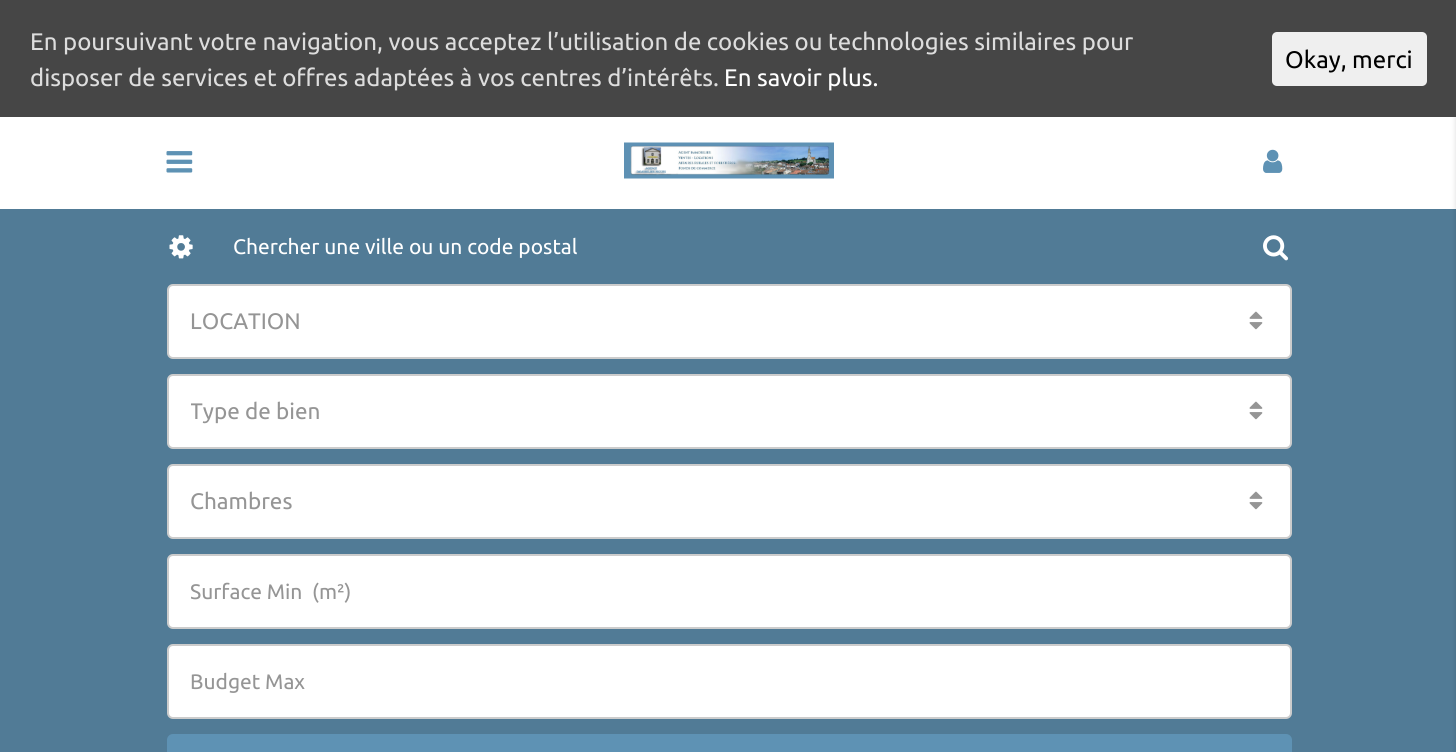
#include <cairo.h>
#include <math.h>
#include <stddef.h>

static cairo_t *ctx;

static void use_color(int r, int g, int b) {
    cairo_set_source_rgb(ctx, r / 255.0, g / 255.0, b / 255.0);
}

static void round_rect(double x, double y, double w, double h, double r) {
    cairo_new_sub_path(ctx);
    cairo_arc(ctx, x + w - r, y + h - r, r, 0, M_PI / 2);
    cairo_arc(ctx, x + r, y + h - r, r, M_PI / 2, M_PI);
    cairo_arc(ctx, x + r, y + r, r, M_PI, 1.5 * M_PI);
    cairo_arc(ctx, x + w - r, y + r, r, 1.5 * M_PI, 2 * M_PI);
    cairo_close_path(ctx);
}

static void shadow(double x, double y, double w, double h, double r, double blur, double alpha) {
    cairo_push_group_with_content(ctx, CAIRO_CONTENT_ALPHA);
    cairo_set_operator(ctx, CAIRO_OPERATOR_SOURCE);
    for (int i = 15; i >= -15 && fmin(w, h) + blur * i / 3 > 0; i -= 2) {
        double e = blur * i / 6;
        cairo_set_source_rgba(ctx, 0, 0, 0, alpha * erfc((i - 1) / 8.5) / 2);
        round_rect(x - e, y - e, w + 2 * e, h + 2 * e, fmax(0, fmin(r + e + blur * .6, fmin(w, h) / 2 + e)));
        cairo_fill(ctx);
    }
    cairo_pattern_t *soft = cairo_pop_group(ctx);
    cairo_mask(ctx, soft);
    cairo_pattern_destroy(soft);
}

static void picture(const char *path, double x, double y, double w, double h) {
    cairo_surface_t *image = cairo_image_surface_create_from_png(path);
    cairo_save(ctx);
    cairo_set_source_surface(ctx, image, x, y);
    cairo_rectangle(ctx, x, y, w, h);
    cairo_fill(ctx);
    cairo_restore(ctx);
    cairo_surface_destroy(image);
}

int main(void) {
    cairo_surface_t *surface = cairo_image_surface_create(CAIRO_FORMAT_RGB24, 1456, 752);
    ctx = cairo_create(surface);
    cairo_font_options_t *options = cairo_font_options_create();
    cairo_font_options_set_hint_metrics(options, CAIRO_HINT_METRICS_OFF);
    cairo_font_options_set_hint_style(options, CAIRO_HINT_STYLE_NONE);
    cairo_set_font_options(ctx, options);
    cairo_set_miter_limit(ctx, 4);
    use_color(255, 255, 255);
    cairo_paint(ctx);
    use_color(81, 123, 150);
    cairo_rectangle(ctx, 0, 209, 1456, 543);
    cairo_fill(ctx);
    use_color(0, 0, 0);
    shadow(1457, 3, 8, 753, 0, 3, 0.2);
    use_color(70, 70, 70);
    cairo_rectangle(ctx, 0, 0, 1456, 117);
    cairo_fill(ctx);
    cairo_select_font_face(ctx, "Ubuntu", CAIRO_FONT_SLANT_NORMAL, CAIRO_FONT_WEIGHT_NORMAL);
    cairo_set_font_size(ctx, 24);
    use_color(221, 221, 221);
    cairo_move_to(ctx, 30, 50);
    cairo_show_text(ctx, "En poursuivant votre navigation, vous acceptez l’utilisation de cookies ou technologies similaires pour");
    cairo_move_to(ctx, 30, 86);
    cairo_show_text(ctx, "disposer de services et offres adaptées à vos centres d’intérêts.");
    use_color(255, 255, 255);
    cairo_move_to(ctx, 724, 86);
    cairo_show_text(ctx, "En savoir plus.");
    use_color(239, 239, 239);
    round_rect(1272, 32, 155, 54, 5);
    cairo_fill(ctx);
    use_color(0, 0, 0);
    cairo_move_to(ctx, 1285, 68);
    cairo_show_text(ctx, "Okay, merci");
    picture("img1.png", 166, 151, 27, 22);
    picture("img2.png", 624, 142, 210, 37);
    picture("img3.png", 1263, 149, 20, 24);
    picture("img4.png", 169, 235, 24, 24);
    cairo_set_font_size(ctx, 21);
    use_color(255, 255, 255);
    cairo_move_to(ctx, 233, 254);
    cairo_show_text(ctx, "Chercher une ville ou un code postal");
    picture("img5.png", 1263, 235, 26, 26);
    round_rect(168, 285, 1123, 73, 5);
    cairo_fill_preserve(ctx);
    use_color(204, 204, 204);
    cairo_stroke(ctx);
    cairo_set_font_size(ctx, 22.5);
    use_color(149, 149, 149);
    cairo_move_to(ctx, 190, 329);
    cairo_show_text(ctx, "LOCATION");
    picture("img6.png", 1249, 311, 14, 19);
    use_color(255, 255, 255);
    round_rect(168, 375, 1123, 73, 5);
    cairo_fill_preserve(ctx);
    use_color(204, 204, 204);
    cairo_stroke(ctx);
    cairo_save(ctx);
    cairo_rectangle(ctx, 191, 395, 1054, 33);
    cairo_clip(ctx);
    use_color(149, 149, 149);
    cairo_move_to(ctx, 190, 419);
    cairo_show_text(ctx, "Type de bien");
    cairo_restore(ctx);
    picture("img6.png", 1249, 401, 14, 19);
    use_color(255, 255, 255);
    round_rect(168, 465, 1123, 73, 5);
    cairo_fill_preserve(ctx);
    use_color(204, 204, 204);
    cairo_stroke(ctx);
    use_color(149, 149, 149);
    cairo_move_to(ctx, 190, 509);
    cairo_show_text(ctx, "Chambres");
    picture("img6.png", 1249, 491, 14, 19);
    use_color(255, 255, 255);
    round_rect(168, 555, 1123, 73, 5);
    cairo_fill_preserve(ctx);
    use_color(204, 204, 204);
    cairo_stroke(ctx);
    cairo_save(ctx);
    cairo_rectangle(ctx, 191, 579, 1077, 24);
    cairo_clip(ctx);
    cairo_set_font_size(ctx, 21);
    use_color(149, 149, 149);
    cairo_move_to(ctx, 190, 599);
    cairo_show_text(ctx, "Surface Min  (m²)");
    cairo_restore(ctx);
    use_color(255, 255, 255);
    round_rect(168, 645, 1123, 73, 5);
    cairo_fill_preserve(ctx);
    use_color(204, 204, 204);
    cairo_stroke(ctx);
    cairo_set_font_size(ctx, 21);
    use_color(149, 149, 149);
    cairo_move_to(ctx, 190, 689);
    cairo_show_text(ctx, "Budget Max");
    use_color(94, 146, 180);
    round_rect(168, 735, 1123, 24, 5);
    cairo_fill_preserve(ctx);
    cairo_stroke(ctx);
    cairo_surface_write_to_png(surface, "result.png");
    cairo_font_options_destroy(options);
    cairo_destroy(ctx);
    cairo_surface_destroy(surface);
    return 0;
}
